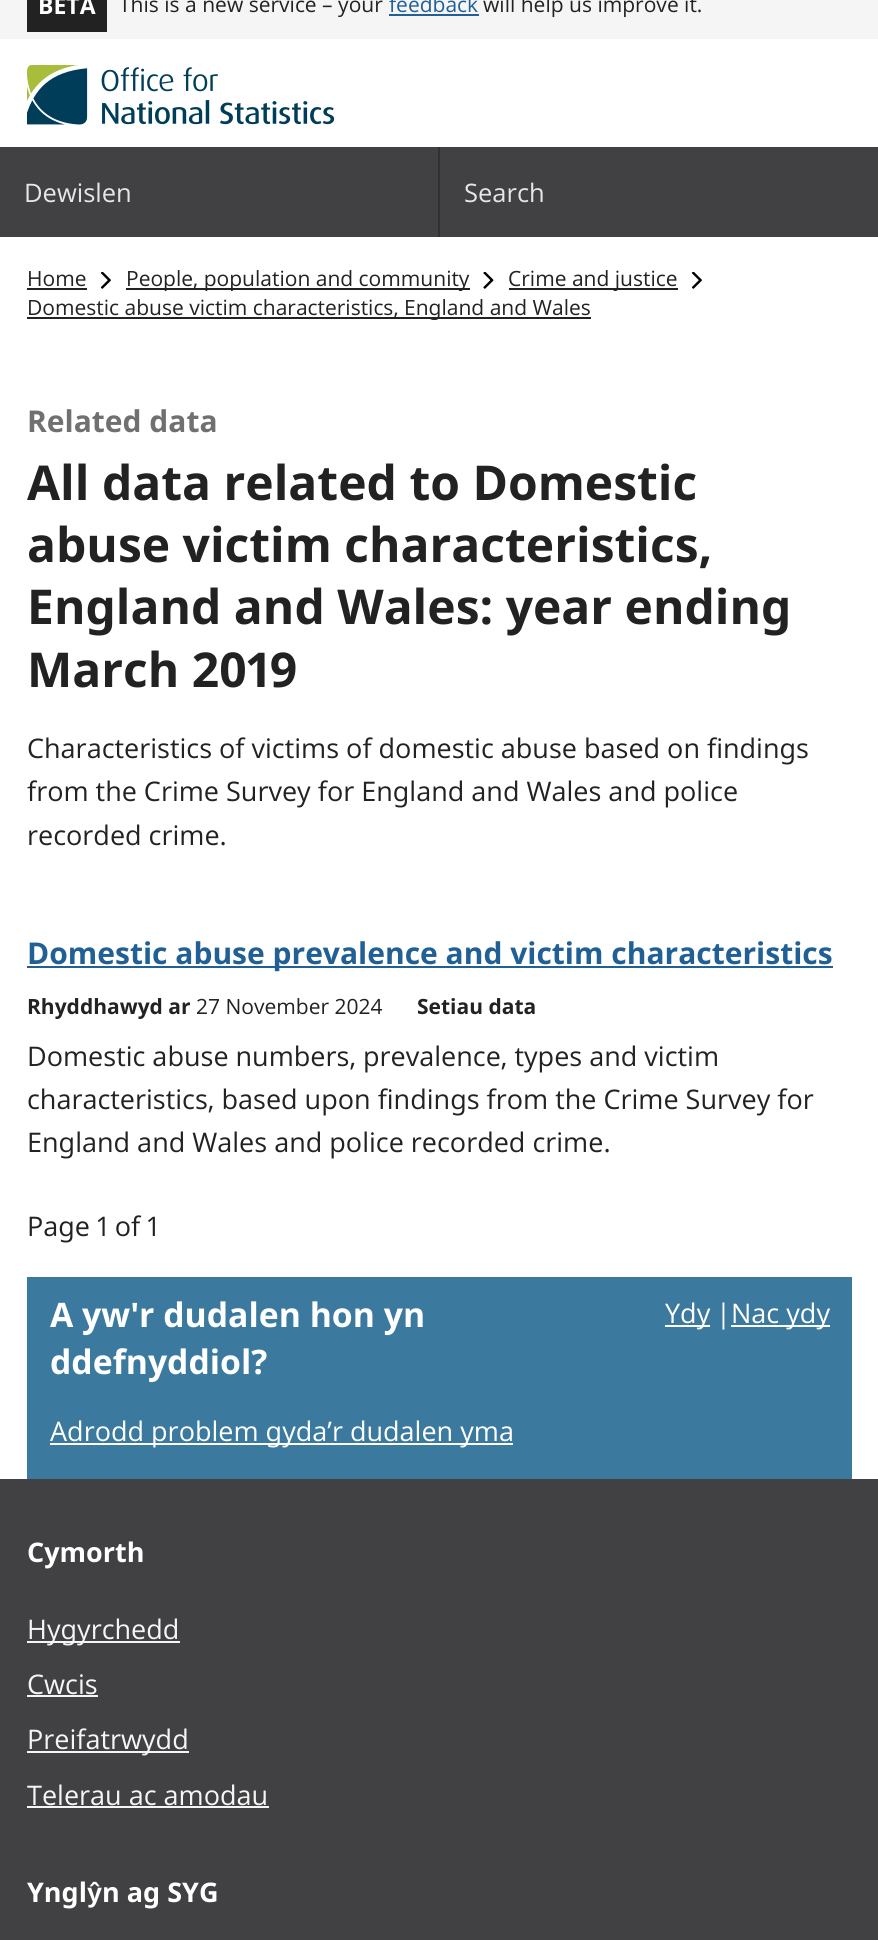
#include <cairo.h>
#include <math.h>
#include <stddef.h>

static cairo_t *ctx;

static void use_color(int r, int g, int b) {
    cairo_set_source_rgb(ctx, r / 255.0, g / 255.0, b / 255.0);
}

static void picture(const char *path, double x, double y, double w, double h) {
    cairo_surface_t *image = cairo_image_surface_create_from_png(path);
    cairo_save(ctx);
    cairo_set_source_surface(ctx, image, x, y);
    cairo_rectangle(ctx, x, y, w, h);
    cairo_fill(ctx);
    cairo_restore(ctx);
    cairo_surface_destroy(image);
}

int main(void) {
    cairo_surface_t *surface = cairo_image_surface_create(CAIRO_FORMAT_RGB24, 878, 1940);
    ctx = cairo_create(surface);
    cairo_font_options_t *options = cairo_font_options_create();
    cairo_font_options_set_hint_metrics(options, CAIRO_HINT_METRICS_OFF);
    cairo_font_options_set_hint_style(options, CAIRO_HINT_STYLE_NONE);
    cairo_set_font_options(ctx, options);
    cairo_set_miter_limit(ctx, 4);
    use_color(255, 255, 255);
    cairo_paint(ctx);
    use_color(245, 245, 246);
    cairo_rectangle(ctx, 0, 0, 878, 39);
    cairo_fill(ctx);
    use_color(34, 34, 34);
    cairo_rectangle(ctx, 27, 0, 80, 32);
    cairo_fill(ctx);
    cairo_select_font_face(ctx, "Open Sans", CAIRO_FONT_SLANT_NORMAL, CAIRO_FONT_WEIGHT_BOLD);
    cairo_set_font_size(ctx, 23);
    use_color(255, 255, 255);
    cairo_move_to(ctx, 38, 14);
    cairo_show_text(ctx, "BETA");
    cairo_select_font_face(ctx, "Open Sans", CAIRO_FONT_SLANT_NORMAL, CAIRO_FONT_WEIGHT_NORMAL);
    cairo_set_font_size(ctx, 21);
    use_color(34, 34, 34);
    cairo_move_to(ctx, 119, 12);
    cairo_show_text(ctx, "This is a new service – your");
    use_color(32, 96, 149);
    cairo_move_to(ctx, 389, 12);
    cairo_show_text(ctx, "feedback");
    cairo_rectangle(ctx, 389, 14, 90, 2);
    cairo_fill(ctx);
    use_color(34, 34, 34);
    cairo_move_to(ctx, 483, 12);
    cairo_show_text(ctx, "will help us improve it.");
    picture("img1.png", 27, 65, 308, 60);
    use_color(65, 64, 66);
    cairo_rectangle(ctx, 0, 147, 438, 90);
    cairo_fill(ctx);
    use_color(50, 49, 50);
    cairo_rectangle(ctx, 438, 147, 2, 90);
    cairo_fill(ctx);
    cairo_set_font_size(ctx, 25.5);
    use_color(229, 230, 231);
    cairo_move_to(ctx, 24, 202);
    cairo_show_text(ctx, "Dewislen");
    use_color(65, 64, 66);
    cairo_rectangle(ctx, 440, 147, 438, 90);
    cairo_fill(ctx);
    use_color(229, 230, 231);
    cairo_move_to(ctx, 464, 202);
    cairo_show_text(ctx, "Search");
    cairo_set_font_size(ctx, 21);
    use_color(34, 34, 34);
    cairo_move_to(ctx, 27, 286);
    cairo_show_text(ctx, "Home");
    cairo_rectangle(ctx, 27, 288, 60, 2);
    cairo_fill(ctx);
    picture("img2.png", 100, 272, 11, 17);
    cairo_rectangle(ctx, 126, 288, 344, 2);
    cairo_fill(ctx);
    cairo_move_to(ctx, 126, 286);
    cairo_show_text(ctx, "People, population and community");
    picture("img3.png", 483, 272, 11, 17);
    cairo_rectangle(ctx, 509, 288, 169, 2);
    cairo_fill(ctx);
    cairo_move_to(ctx, 508, 286);
    cairo_show_text(ctx, "Crime and justice");
    picture("img2.png", 691, 272, 11, 17);
    cairo_rectangle(ctx, 27, 317, 564, 2);
    cairo_fill(ctx);
    cairo_move_to(ctx, 27, 315);
    cairo_show_text(ctx, "Domestic abuse victim characteristics, England and Wales");
    cairo_select_font_face(ctx, "Open Sans", CAIRO_FONT_SLANT_NORMAL, CAIRO_FONT_WEIGHT_BOLD);
    cairo_set_font_size(ctx, 30);
    use_color(112, 112, 113);
    cairo_move_to(ctx, 27, 432);
    cairo_show_text(ctx, "Related data");
    cairo_set_font_size(ctx, 48);
    use_color(34, 34, 34);
    cairo_move_to(ctx, 27, 500);
    cairo_show_text(ctx, "All data related to Domestic");
    cairo_move_to(ctx, 27, 562);
    cairo_show_text(ctx, "abuse victim characteristics,");
    cairo_move_to(ctx, 27, 624);
    cairo_show_text(ctx, "England and Wales: year ending");
    cairo_move_to(ctx, 27, 687);
    cairo_show_text(ctx, "March 2019");
    cairo_select_font_face(ctx, "Open Sans", CAIRO_FONT_SLANT_NORMAL, CAIRO_FONT_WEIGHT_NORMAL);
    cairo_set_font_size(ctx, 27);
    cairo_move_to(ctx, 27, 758);
    cairo_show_text(ctx, "Characteristics of victims of domestic abuse based on findings");
    cairo_move_to(ctx, 27, 801);
    cairo_show_text(ctx, "from the Crime Survey for England and Wales and police");
    cairo_move_to(ctx, 27, 845);
    cairo_show_text(ctx, "recorded crime.");
    use_color(32, 96, 149);
    cairo_rectangle(ctx, 27, 966, 806, 2);
    cairo_fill(ctx);
    cairo_select_font_face(ctx, "Open Sans", CAIRO_FONT_SLANT_NORMAL, CAIRO_FONT_WEIGHT_BOLD);
    cairo_set_font_size(ctx, 30);
    cairo_move_to(ctx, 27, 964);
    cairo_show_text(ctx, "Domestic abuse prevalence and victim characteristics");
    cairo_set_font_size(ctx, 21);
    use_color(34, 34, 34);
    cairo_move_to(ctx, 27, 1014);
    cairo_show_text(ctx, "Rhyddhawyd ar");
    cairo_select_font_face(ctx, "Open Sans", CAIRO_FONT_SLANT_NORMAL, CAIRO_FONT_WEIGHT_NORMAL);
    cairo_move_to(ctx, 196, 1014);
    cairo_show_text(ctx, "27 November 2024");
    cairo_select_font_face(ctx, "Open Sans", CAIRO_FONT_SLANT_NORMAL, CAIRO_FONT_WEIGHT_BOLD);
    cairo_move_to(ctx, 417, 1014);
    cairo_show_text(ctx, "Setiau data");
    cairo_select_font_face(ctx, "Open Sans", CAIRO_FONT_SLANT_NORMAL, CAIRO_FONT_WEIGHT_NORMAL);
    cairo_set_font_size(ctx, 27);
    cairo_move_to(ctx, 27, 1066);
    cairo_show_text(ctx, "Domestic abuse numbers, prevalence, types and victim");
    cairo_move_to(ctx, 27, 1109);
    cairo_show_text(ctx, "characteristics, based upon findings from the Crime Survey for");
    cairo_move_to(ctx, 27, 1152);
    cairo_show_text(ctx, "England and Wales and police recorded crime.");
    cairo_move_to(ctx, 27, 1236);
    cairo_show_text(ctx, "Page 1 of 1");
    use_color(59, 122, 158);
    cairo_rectangle(ctx, 27, 1277, 825, 202);
    cairo_fill(ctx);
    cairo_select_font_face(ctx, "Open Sans", CAIRO_FONT_SLANT_NORMAL, CAIRO_FONT_WEIGHT_BOLD);
    cairo_set_font_size(ctx, 33.75);
    use_color(255, 255, 255);
    cairo_move_to(ctx, 50, 1327);
    cairo_show_text(ctx, "A yw'r dudalen hon yn");
    cairo_move_to(ctx, 50, 1374);
    cairo_show_text(ctx, "ddefnyddiol?");
    cairo_rectangle(ctx, 665, 1325, 45, 2);
    cairo_fill(ctx);
    cairo_select_font_face(ctx, "Open Sans", CAIRO_FONT_SLANT_NORMAL, CAIRO_FONT_WEIGHT_NORMAL);
    cairo_set_font_size(ctx, 27);
    cairo_move_to(ctx, 665, 1323);
    cairo_show_text(ctx, "Ydy");
    cairo_move_to(ctx, 716, 1323);
    cairo_show_text(ctx, "|");
    cairo_rectangle(ctx, 731, 1325, 99, 2);
    cairo_fill(ctx);
    cairo_move_to(ctx, 731, 1323);
    cairo_show_text(ctx, "Nac ydy");
    cairo_rectangle(ctx, 50, 1443, 463, 2);
    cairo_fill(ctx);
    cairo_move_to(ctx, 50, 1441);
    cairo_show_text(ctx, "Adrodd problem gyda’r dudalen yma");
    use_color(65, 64, 66);
    cairo_rectangle(ctx, 0, 1479, 878, 461);
    cairo_fill(ctx);
    cairo_select_font_face(ctx, "Open Sans", CAIRO_FONT_SLANT_NORMAL, CAIRO_FONT_WEIGHT_BOLD);
    use_color(255, 255, 255);
    cairo_move_to(ctx, 27, 1562);
    cairo_show_text(ctx, "Cymorth");
    use_color(245, 245, 246);
    cairo_rectangle(ctx, 27, 1641, 153, 2);
    cairo_fill(ctx);
    cairo_select_font_face(ctx, "Open Sans", CAIRO_FONT_SLANT_NORMAL, CAIRO_FONT_WEIGHT_NORMAL);
    cairo_move_to(ctx, 27, 1639);
    cairo_show_text(ctx, "Hygyrchedd");
    cairo_move_to(ctx, 27, 1694);
    cairo_show_text(ctx, "Cwcis");
    cairo_rectangle(ctx, 27, 1695, 71, 2);
    cairo_fill(ctx);
    cairo_rectangle(ctx, 27, 1751, 162, 2);
    cairo_fill(ctx);
    cairo_move_to(ctx, 27, 1749);
    cairo_show_text(ctx, "Preifatrwydd");
    cairo_move_to(ctx, 27, 1805);
    cairo_show_text(ctx, "Telerau ac amodau");
    cairo_rectangle(ctx, 27, 1806, 242, 2);
    cairo_fill(ctx);
    cairo_select_font_face(ctx, "Open Sans", CAIRO_FONT_SLANT_NORMAL, CAIRO_FONT_WEIGHT_BOLD);
    use_color(255, 255, 255);
    cairo_move_to(ctx, 27, 1902);
    cairo_show_text(ctx, "Yngl");
    cairo_select_font_face(ctx, "Liberation Sans", CAIRO_FONT_SLANT_NORMAL, CAIRO_FONT_WEIGHT_BOLD);
    cairo_move_to(ctx, 87, 1902);
    cairo_show_text(ctx, "ŷ");
    cairo_select_font_face(ctx, "Open Sans", CAIRO_FONT_SLANT_NORMAL, CAIRO_FONT_WEIGHT_BOLD);
    cairo_move_to(ctx, 102, 1902);
    cairo_show_text(ctx, "n ag SYG");
    cairo_surface_write_to_png(surface, "result.png");
    cairo_font_options_destroy(options);
    cairo_destroy(ctx);
    cairo_surface_destroy(surface);
    return 0;
}
